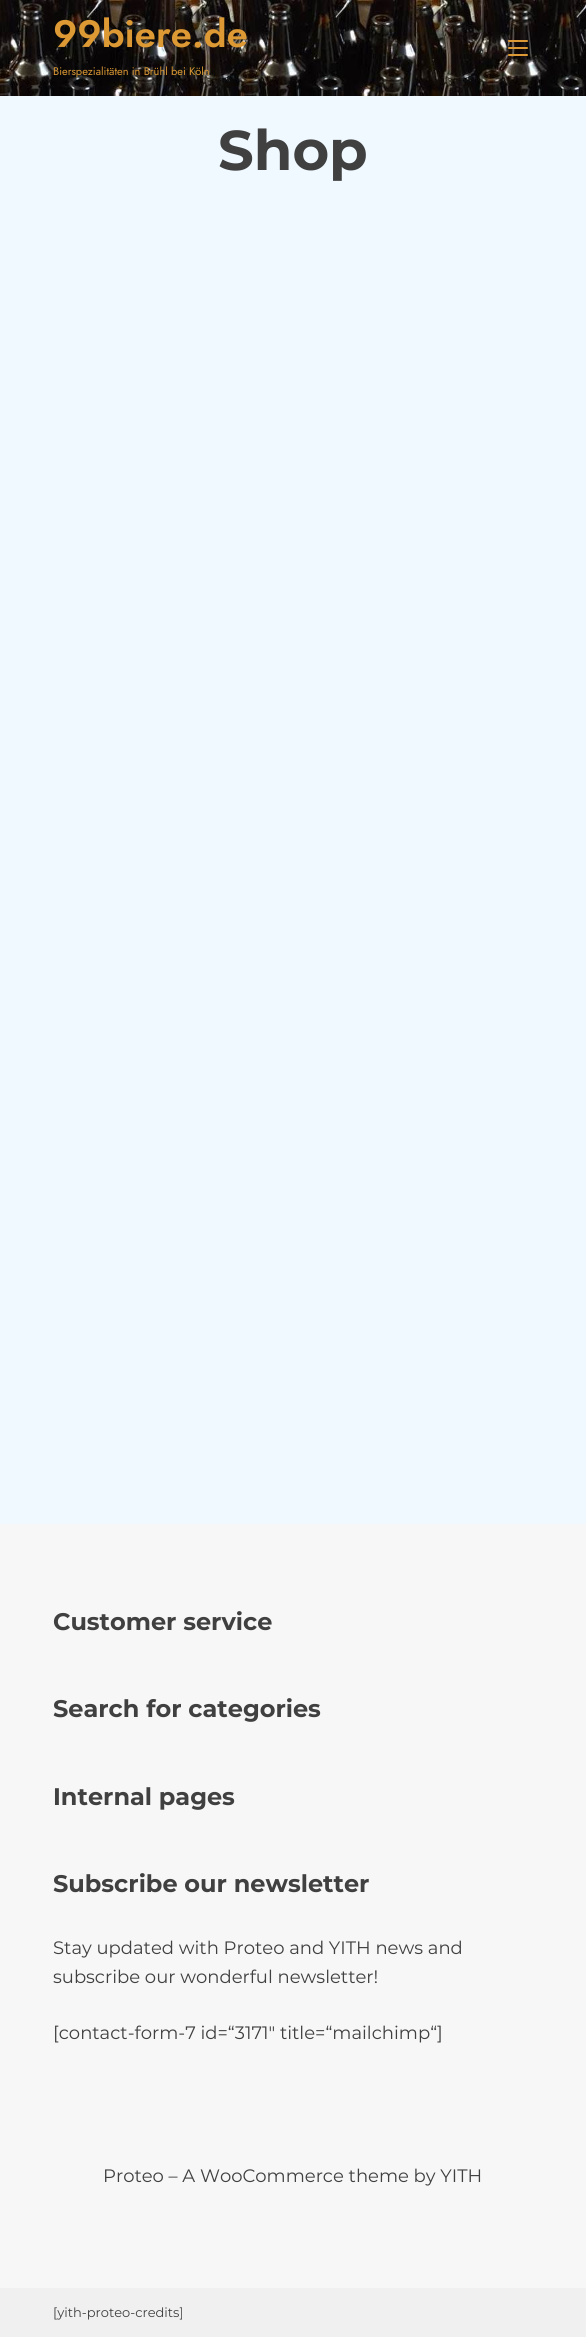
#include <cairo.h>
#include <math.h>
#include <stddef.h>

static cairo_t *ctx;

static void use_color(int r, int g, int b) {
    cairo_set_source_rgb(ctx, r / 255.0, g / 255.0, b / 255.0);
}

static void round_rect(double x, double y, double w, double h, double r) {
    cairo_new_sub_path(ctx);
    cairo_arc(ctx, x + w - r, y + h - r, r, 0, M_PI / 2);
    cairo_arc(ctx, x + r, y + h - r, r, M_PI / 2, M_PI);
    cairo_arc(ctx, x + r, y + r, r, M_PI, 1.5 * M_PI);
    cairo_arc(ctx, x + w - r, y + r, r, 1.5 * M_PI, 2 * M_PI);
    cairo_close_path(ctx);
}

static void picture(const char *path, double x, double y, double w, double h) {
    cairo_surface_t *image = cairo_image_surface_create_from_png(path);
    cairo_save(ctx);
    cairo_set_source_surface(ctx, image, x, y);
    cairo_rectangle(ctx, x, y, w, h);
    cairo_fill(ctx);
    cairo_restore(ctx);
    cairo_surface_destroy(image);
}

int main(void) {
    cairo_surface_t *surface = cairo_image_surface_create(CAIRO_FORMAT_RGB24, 586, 2337);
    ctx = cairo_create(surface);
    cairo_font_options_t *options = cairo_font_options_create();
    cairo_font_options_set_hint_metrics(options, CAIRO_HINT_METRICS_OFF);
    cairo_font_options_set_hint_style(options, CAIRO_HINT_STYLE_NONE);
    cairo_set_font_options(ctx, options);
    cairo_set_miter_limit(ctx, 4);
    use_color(239, 249, 255);
    cairo_paint(ctx);
    picture("img1.png", 0, 0, 586, 96);
    cairo_select_font_face(ctx, "Jost SemiBold", CAIRO_FONT_SLANT_NORMAL, CAIRO_FONT_WEIGHT_NORMAL);
    cairo_set_font_size(ctx, 38);
    use_color(221, 153, 51);
    cairo_move_to(ctx, 53, 47);
    cairo_show_text(ctx, "99biere.de");
    cairo_select_font_face(ctx, "Jost", CAIRO_FONT_SLANT_NORMAL, CAIRO_FONT_WEIGHT_NORMAL);
    cairo_set_font_size(ctx, 11);
    cairo_move_to(ctx, 53, 75);
    cairo_show_text(ctx, "Bierspezialitäten in Brühl bei Köln");
    round_rect(508, 40, 20, 2, 1);
    cairo_fill(ctx);
    round_rect(508, 47, 20, 2, 1);
    cairo_fill(ctx);
    round_rect(508, 54, 20, 2, 1);
    cairo_fill(ctx);
    cairo_select_font_face(ctx, "Montserrat", CAIRO_FONT_SLANT_NORMAL, CAIRO_FONT_WEIGHT_BOLD);
    cairo_set_font_size(ctx, 56);
    use_color(64, 64, 64);
    cairo_move_to(ctx, 218, 170);
    cairo_show_text(ctx, "Shop");
    use_color(247, 247, 247);
    cairo_rectangle(ctx, 0, 1524, 586, 764);
    cairo_fill(ctx);
    cairo_set_font_size(ctx, 24);
    use_color(64, 64, 64);
    cairo_move_to(ctx, 53, 1630);
    cairo_show_text(ctx, "Customer service");
    cairo_move_to(ctx, 53, 1717);
    cairo_show_text(ctx, "Search for categories");
    cairo_move_to(ctx, 53, 1805);
    cairo_show_text(ctx, "Internal pages");
    cairo_move_to(ctx, 53, 1892);
    cairo_show_text(ctx, "Subscribe our newsletter");
    cairo_select_font_face(ctx, "Montserrat", CAIRO_FONT_SLANT_NORMAL, CAIRO_FONT_WEIGHT_NORMAL);
    cairo_set_font_size(ctx, 18);
    cairo_move_to(ctx, 53, 1954);
    cairo_show_text(ctx, "Stay updated with Proteo and YITH news and");
    cairo_move_to(ctx, 53, 1983);
    cairo_show_text(ctx, "subscribe our wonderful newsletter!");
    cairo_move_to(ctx, 53, 2039);
    cairo_show_text(ctx, "[contact-form-7 id=“3171″ title=“mailchimp“]");
    cairo_move_to(ctx, 103, 2182);
    cairo_show_text(ctx, "Proteo – A WooCommerce theme by YITH");
    use_color(240, 240, 240);
    cairo_rectangle(ctx, 0, 2288, 586, 49);
    cairo_fill(ctx);
    cairo_set_font_size(ctx, 13);
    use_color(64, 64, 64);
    cairo_move_to(ctx, 53, 2317);
    cairo_show_text(ctx, "[yith-proteo-credits]");
    cairo_surface_write_to_png(surface, "result.png");
    cairo_font_options_destroy(options);
    cairo_destroy(ctx);
    cairo_surface_destroy(surface);
    return 0;
}
